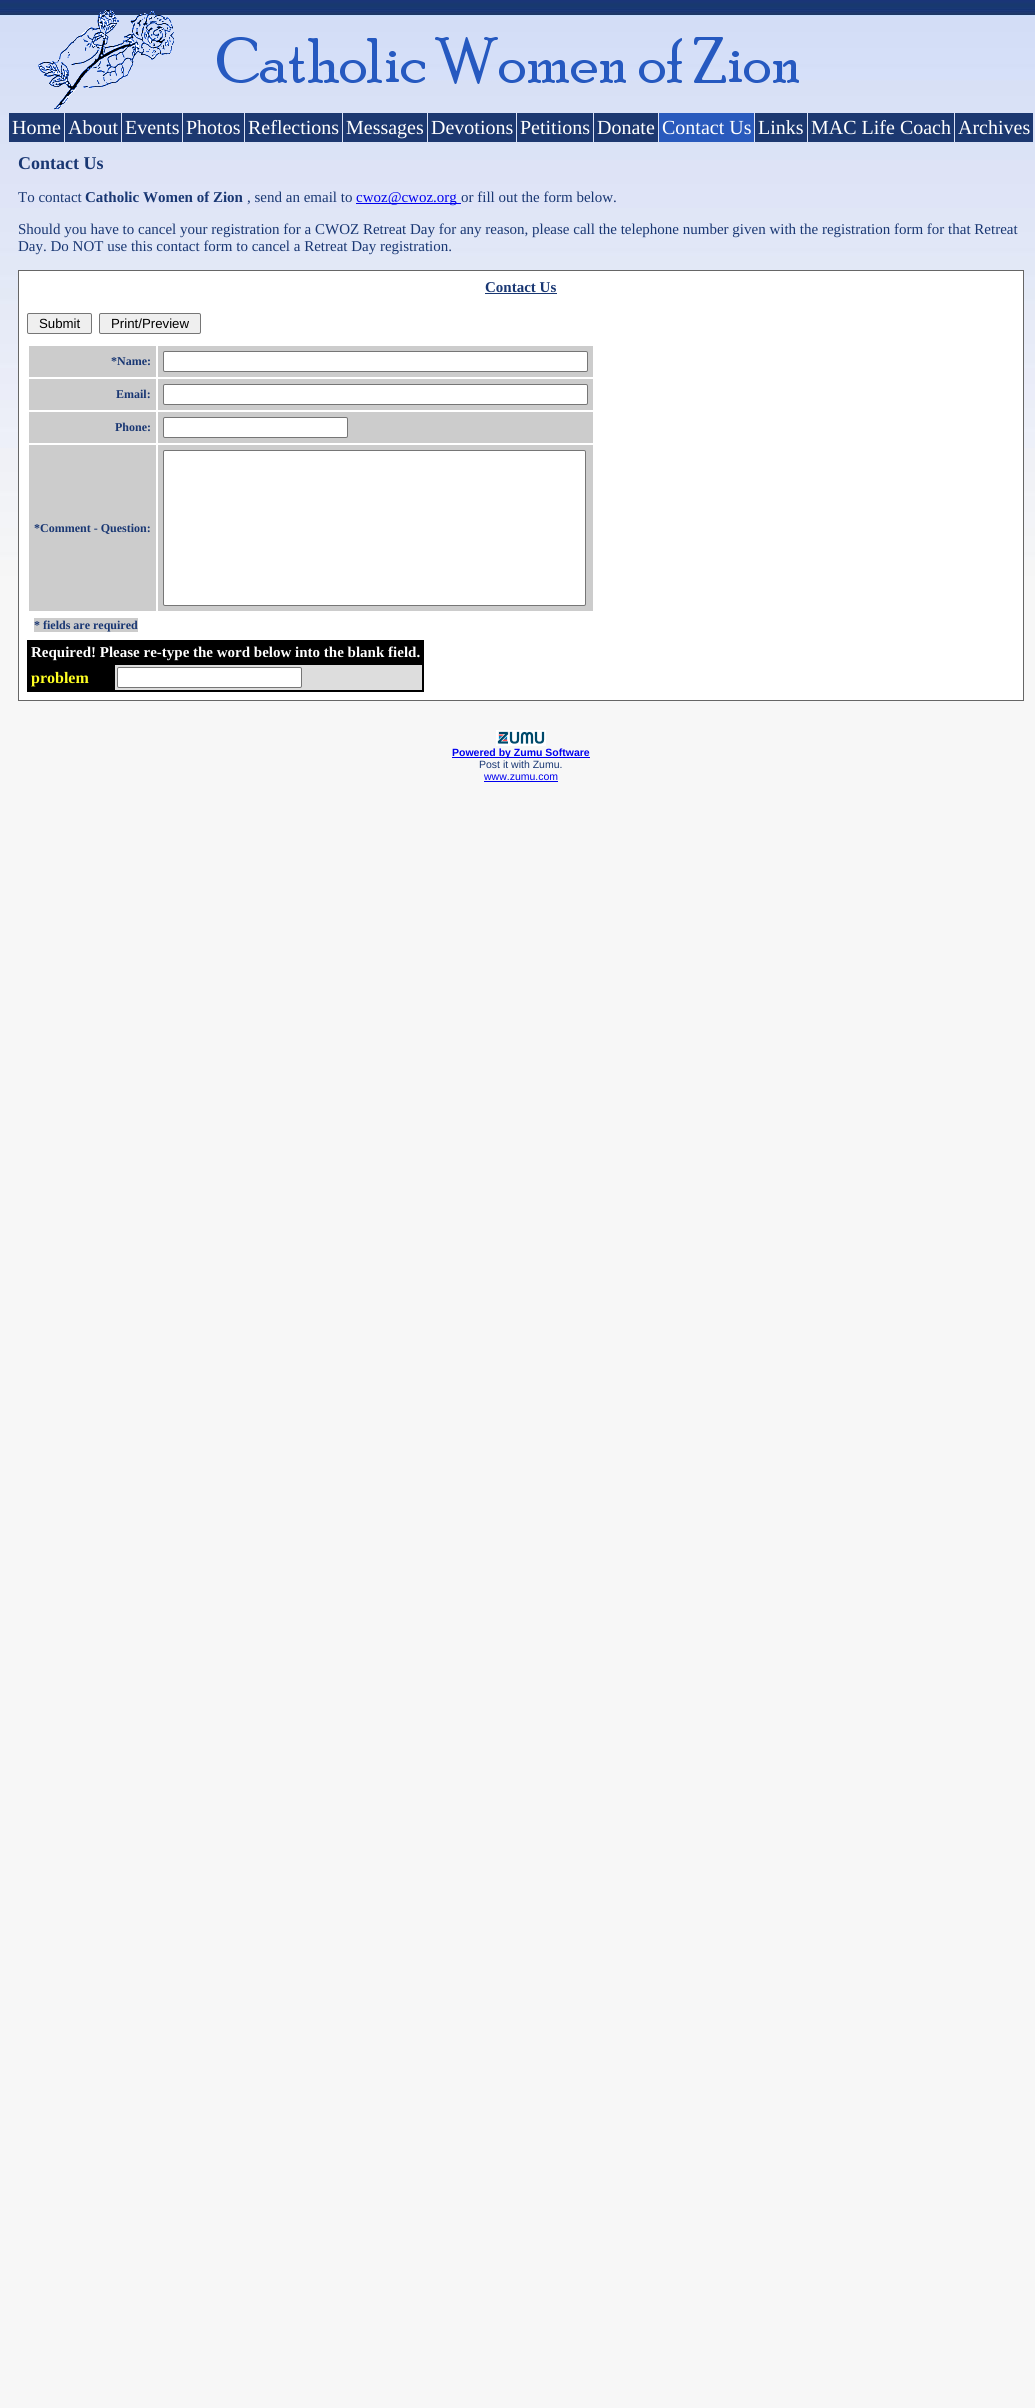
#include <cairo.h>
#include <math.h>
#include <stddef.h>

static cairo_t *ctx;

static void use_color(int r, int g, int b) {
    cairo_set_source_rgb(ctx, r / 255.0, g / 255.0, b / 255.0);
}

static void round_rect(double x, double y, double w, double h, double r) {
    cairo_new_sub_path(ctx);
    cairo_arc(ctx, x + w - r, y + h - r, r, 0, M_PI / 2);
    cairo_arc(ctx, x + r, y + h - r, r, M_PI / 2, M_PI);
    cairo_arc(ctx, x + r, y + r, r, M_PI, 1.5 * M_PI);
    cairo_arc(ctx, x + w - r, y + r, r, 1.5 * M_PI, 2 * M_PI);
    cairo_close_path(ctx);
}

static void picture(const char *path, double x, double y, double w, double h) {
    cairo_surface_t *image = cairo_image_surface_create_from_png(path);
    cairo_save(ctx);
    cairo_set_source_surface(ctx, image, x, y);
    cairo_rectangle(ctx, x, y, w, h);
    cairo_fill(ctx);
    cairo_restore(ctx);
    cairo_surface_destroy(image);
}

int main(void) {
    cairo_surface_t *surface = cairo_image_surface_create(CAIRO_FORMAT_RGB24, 1035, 2408);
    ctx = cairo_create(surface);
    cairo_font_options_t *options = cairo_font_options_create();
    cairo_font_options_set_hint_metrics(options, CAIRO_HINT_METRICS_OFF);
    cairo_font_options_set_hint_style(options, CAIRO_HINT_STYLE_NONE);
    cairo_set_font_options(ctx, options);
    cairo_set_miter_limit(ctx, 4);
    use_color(255, 255, 255);
    cairo_paint(ctx);
    picture("img1.png", 0, 0, 1035, 2408);
    picture("img2.png", 38, 10, 761, 100);
    use_color(28, 56, 112);
    cairo_rectangle(ctx, 9, 113, 55, 29);
    cairo_fill(ctx);
    cairo_select_font_face(ctx, "Liberation Serif", CAIRO_FONT_SLANT_NORMAL, CAIRO_FONT_WEIGHT_NORMAL);
    cairo_set_font_size(ctx, 20);
    use_color(255, 255, 255);
    cairo_move_to(ctx, 12, 134);
    cairo_show_text(ctx, "Home");
    use_color(28, 56, 112);
    cairo_rectangle(ctx, 65, 113, 56, 29);
    cairo_fill(ctx);
    use_color(255, 255, 255);
    cairo_move_to(ctx, 68, 134);
    cairo_show_text(ctx, "About");
    use_color(28, 56, 112);
    cairo_rectangle(ctx, 122, 113, 60, 29);
    cairo_fill(ctx);
    use_color(255, 255, 255);
    cairo_move_to(ctx, 125, 134);
    cairo_show_text(ctx, "Events");
    use_color(28, 56, 112);
    cairo_rectangle(ctx, 183, 113, 61, 29);
    cairo_fill(ctx);
    use_color(255, 255, 255);
    cairo_move_to(ctx, 186, 134);
    cairo_show_text(ctx, "Photos");
    use_color(28, 56, 112);
    cairo_rectangle(ctx, 245, 113, 97, 29);
    cairo_fill(ctx);
    use_color(255, 255, 255);
    cairo_move_to(ctx, 248, 134);
    cairo_show_text(ctx, "Reflections");
    use_color(28, 56, 112);
    cairo_rectangle(ctx, 343, 113, 84, 29);
    cairo_fill(ctx);
    use_color(255, 255, 255);
    cairo_move_to(ctx, 346, 134);
    cairo_show_text(ctx, "Messages");
    use_color(28, 56, 112);
    cairo_rectangle(ctx, 428, 113, 88, 29);
    cairo_fill(ctx);
    use_color(255, 255, 255);
    cairo_move_to(ctx, 431, 134);
    cairo_show_text(ctx, "Devotions");
    use_color(28, 56, 112);
    cairo_rectangle(ctx, 517, 113, 76, 29);
    cairo_fill(ctx);
    use_color(255, 255, 255);
    cairo_move_to(ctx, 520, 134);
    cairo_show_text(ctx, "Petitions");
    use_color(28, 56, 112);
    cairo_rectangle(ctx, 594, 113, 64, 29);
    cairo_fill(ctx);
    use_color(255, 255, 255);
    cairo_move_to(ctx, 597, 134);
    cairo_show_text(ctx, "Donate");
    use_color(41, 90, 189);
    cairo_rectangle(ctx, 659, 113, 95, 29);
    cairo_fill(ctx);
    use_color(255, 255, 255);
    cairo_move_to(ctx, 662, 134);
    cairo_show_text(ctx, "Contact Us");
    use_color(28, 56, 112);
    cairo_rectangle(ctx, 755, 113, 52, 29);
    cairo_fill(ctx);
    use_color(255, 255, 255);
    cairo_move_to(ctx, 758, 134);
    cairo_show_text(ctx, "Links");
    use_color(28, 56, 112);
    cairo_rectangle(ctx, 808, 113, 146, 29);
    cairo_fill(ctx);
    use_color(255, 255, 255);
    cairo_move_to(ctx, 811, 134);
    cairo_show_text(ctx, "MAC Life Coach");
    use_color(28, 56, 112);
    cairo_rectangle(ctx, 955, 113, 78, 29);
    cairo_fill(ctx);
    use_color(255, 255, 255);
    cairo_move_to(ctx, 958, 134);
    cairo_show_text(ctx, "Archives");
    cairo_select_font_face(ctx, "Liberation Serif", CAIRO_FONT_SLANT_NORMAL, CAIRO_FONT_WEIGHT_BOLD);
    cairo_set_font_size(ctx, 18);
    use_color(25, 55, 115);
    cairo_move_to(ctx, 18, 169);
    cairo_show_text(ctx, "Contact Us");
    cairo_select_font_face(ctx, "Liberation Serif", CAIRO_FONT_SLANT_NORMAL, CAIRO_FONT_WEIGHT_NORMAL);
    cairo_set_font_size(ctx, 15);
    cairo_move_to(ctx, 18, 202);
    cairo_show_text(ctx, "To contact");
    cairo_select_font_face(ctx, "Liberation Serif", CAIRO_FONT_SLANT_NORMAL, CAIRO_FONT_WEIGHT_BOLD);
    cairo_move_to(ctx, 85, 202);
    cairo_show_text(ctx, "Catholic Women of Zion");
    cairo_select_font_face(ctx, "Liberation Serif", CAIRO_FONT_SLANT_NORMAL, CAIRO_FONT_WEIGHT_NORMAL);
    cairo_move_to(ctx, 247, 202);
    cairo_show_text(ctx, ", send an email to");
    use_color(0, 0, 238);
    cairo_rectangle(ctx, 356, 203, 105, 1);
    cairo_fill(ctx);
    cairo_move_to(ctx, 356, 202);
    cairo_show_text(ctx, "cwoz@cwoz.org");
    use_color(25, 55, 115);
    cairo_move_to(ctx, 461, 202);
    cairo_show_text(ctx, "or fill out the form below.");
    cairo_move_to(ctx, 18, 234);
    cairo_show_text(ctx, "Should you have to cancel your registration for a CWOZ Retreat Day for any reason, please call the telephone number given with the registration form for that Retreat");
    cairo_move_to(ctx, 18, 251);
    cairo_show_text(ctx, "Day. Do NOT use this contact form to cancel a Retreat Day registration.");
    use_color(255, 255, 255);
    cairo_rectangle(ctx, 18.5, 270.5, 1005, 430);
    cairo_fill_preserve(ctx);
    use_color(102, 102, 102);
    cairo_set_line_width(ctx, 1);
    cairo_stroke(ctx);
    cairo_select_font_face(ctx, "Liberation Serif", CAIRO_FONT_SLANT_NORMAL, CAIRO_FONT_WEIGHT_BOLD);
    use_color(25, 55, 115);
    cairo_move_to(ctx, 485, 292);
    cairo_show_text(ctx, "Contact Us");
    cairo_rectangle(ctx, 485, 293, 72, 1);
    cairo_fill(ctx);
    use_color(239, 239, 239);
    round_rect(27.5, 313.5, 64, 20, 1.5);
    cairo_fill_preserve(ctx);
    use_color(118, 118, 118);
    cairo_stroke(ctx);
    cairo_select_font_face(ctx, "Liberation Sans", CAIRO_FONT_SLANT_NORMAL, CAIRO_FONT_WEIGHT_NORMAL);
    cairo_set_font_size(ctx, 13.25);
    use_color(0, 0, 0);
    cairo_move_to(ctx, 39, 328);
    cairo_show_text(ctx, "Submit");
    use_color(239, 239, 239);
    round_rect(99.5, 313.5, 101, 20, 1.5);
    cairo_fill_preserve(ctx);
    use_color(118, 118, 118);
    cairo_stroke(ctx);
    use_color(0, 0, 0);
    cairo_move_to(ctx, 111, 328);
    cairo_show_text(ctx, "Print/Preview");
    use_color(204, 204, 204);
    cairo_rectangle(ctx, 29, 346, 127, 31);
    cairo_fill(ctx);
    cairo_select_font_face(ctx, "Liberation Serif", CAIRO_FONT_SLANT_NORMAL, CAIRO_FONT_WEIGHT_BOLD);
    cairo_set_font_size(ctx, 12);
    use_color(25, 55, 115);
    cairo_move_to(ctx, 111, 365);
    cairo_show_text(ctx, "*Name:");
    use_color(204, 204, 204);
    cairo_rectangle(ctx, 158, 346, 435, 31);
    cairo_fill(ctx);
    use_color(255, 255, 255);
    round_rect(163.5, 351.5, 424, 20, 1.5);
    cairo_fill_preserve(ctx);
    use_color(118, 118, 118);
    cairo_stroke(ctx);
    use_color(204, 204, 204);
    cairo_rectangle(ctx, 29, 379, 127, 31);
    cairo_fill(ctx);
    use_color(25, 55, 115);
    cairo_move_to(ctx, 116, 398);
    cairo_show_text(ctx, "Email:");
    use_color(204, 204, 204);
    cairo_rectangle(ctx, 158, 379, 435, 31);
    cairo_fill(ctx);
    use_color(255, 255, 255);
    round_rect(163.5, 384.5, 424, 20, 1.5);
    cairo_fill_preserve(ctx);
    use_color(118, 118, 118);
    cairo_stroke(ctx);
    use_color(204, 204, 204);
    cairo_rectangle(ctx, 29, 412, 127, 31);
    cairo_fill(ctx);
    use_color(25, 55, 115);
    cairo_move_to(ctx, 115, 431);
    cairo_show_text(ctx, "Phone:");
    use_color(204, 204, 204);
    cairo_rectangle(ctx, 158, 412, 435, 31);
    cairo_fill(ctx);
    use_color(255, 255, 255);
    round_rect(163.5, 417.5, 184, 20, 1.5);
    cairo_fill_preserve(ctx);
    use_color(118, 118, 118);
    cairo_stroke(ctx);
    use_color(204, 204, 204);
    cairo_rectangle(ctx, 29, 445, 127, 166);
    cairo_fill(ctx);
    use_color(25, 55, 115);
    cairo_move_to(ctx, 34, 532);
    cairo_show_text(ctx, "*Comment - Question:");
    use_color(204, 204, 204);
    cairo_rectangle(ctx, 158, 445, 435, 166);
    cairo_fill(ctx);
    use_color(255, 255, 255);
    round_rect(163.5, 450.5, 422, 155, 1.5);
    cairo_fill_preserve(ctx);
    use_color(118, 118, 118);
    cairo_stroke(ctx);
    use_color(204, 204, 204);
    cairo_rectangle(ctx, 34, 618, 104, 14);
    cairo_fill(ctx);
    use_color(25, 55, 115);
    cairo_move_to(ctx, 34, 629);
    cairo_show_text(ctx, "* fields are required");
    use_color(0, 0, 0);
    cairo_rectangle(ctx, 27, 640, 397, 52);
    cairo_fill(ctx);
    cairo_set_font_size(ctx, 15);
    use_color(255, 255, 255);
    cairo_move_to(ctx, 31, 657);
    cairo_show_text(ctx, "Required! Please re-type the word below into the blank field.");
    cairo_set_font_size(ctx, 16);
    use_color(255, 255, 34);
    cairo_move_to(ctx, 31, 683);
    cairo_show_text(ctx, "pro");
    cairo_move_to(ctx, 55, 683);
    cairo_show_text(ctx, "blem");
    use_color(221, 221, 221);
    cairo_rectangle(ctx, 115, 665, 307, 25);
    cairo_fill(ctx);
    use_color(255, 255, 255);
    round_rect(117.5, 667.5, 184, 20, 1.5);
    cairo_fill_preserve(ctx);
    use_color(118, 118, 118);
    cairo_stroke(ctx);
    picture("img3.png", 496, 730, 50, 16);
    use_color(0, 0, 238);
    cairo_rectangle(ctx, 452, 757, 138, 1);
    cairo_fill(ctx);
    cairo_select_font_face(ctx, "Liberation Sans", CAIRO_FONT_SLANT_NORMAL, CAIRO_FONT_WEIGHT_BOLD);
    cairo_set_font_size(ctx, 10.5);
    cairo_move_to(ctx, 452, 756);
    cairo_show_text(ctx, "Powered by Zumu Software");
    cairo_select_font_face(ctx, "Liberation Sans", CAIRO_FONT_SLANT_NORMAL, CAIRO_FONT_WEIGHT_NORMAL);
    use_color(25, 55, 115);
    cairo_move_to(ctx, 479, 768);
    cairo_show_text(ctx, "Post it with Zumu.");
    use_color(0, 0, 238);
    cairo_move_to(ctx, 484, 780);
    cairo_show_text(ctx, "www.zumu.com");
    cairo_rectangle(ctx, 484, 781, 74, 1);
    cairo_fill(ctx);
    cairo_surface_write_to_png(surface, "result.png");
    cairo_font_options_destroy(options);
    cairo_destroy(ctx);
    cairo_surface_destroy(surface);
    return 0;
}
